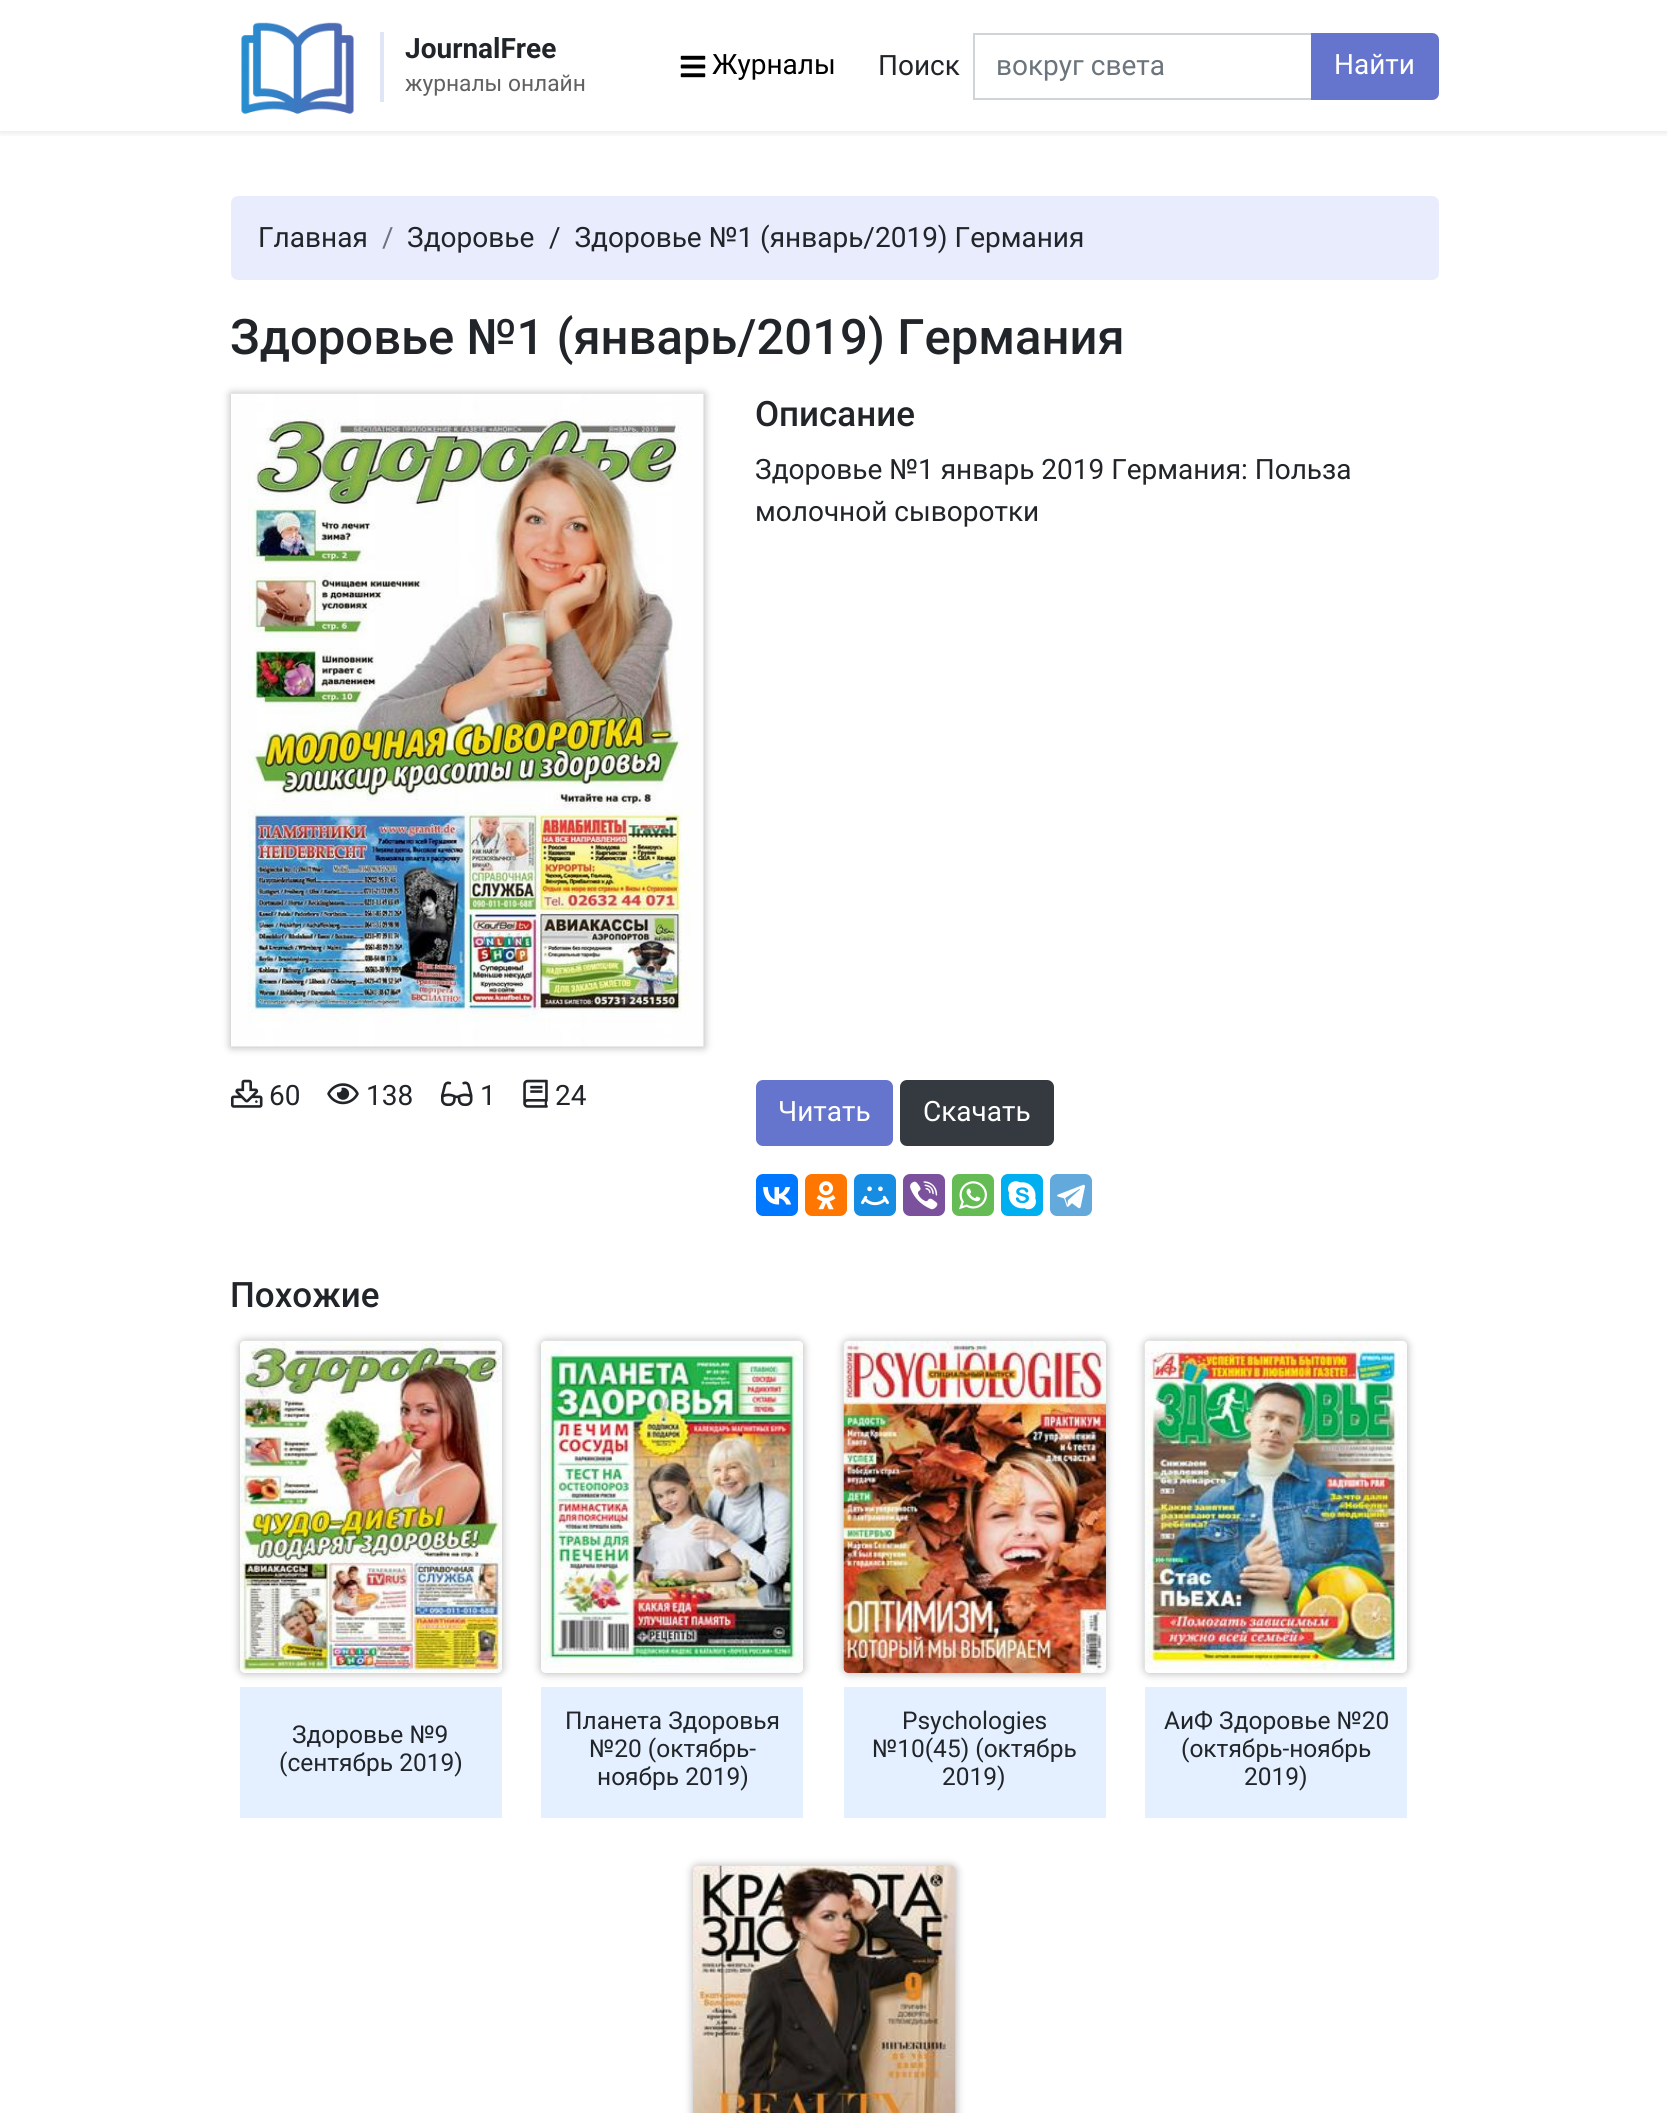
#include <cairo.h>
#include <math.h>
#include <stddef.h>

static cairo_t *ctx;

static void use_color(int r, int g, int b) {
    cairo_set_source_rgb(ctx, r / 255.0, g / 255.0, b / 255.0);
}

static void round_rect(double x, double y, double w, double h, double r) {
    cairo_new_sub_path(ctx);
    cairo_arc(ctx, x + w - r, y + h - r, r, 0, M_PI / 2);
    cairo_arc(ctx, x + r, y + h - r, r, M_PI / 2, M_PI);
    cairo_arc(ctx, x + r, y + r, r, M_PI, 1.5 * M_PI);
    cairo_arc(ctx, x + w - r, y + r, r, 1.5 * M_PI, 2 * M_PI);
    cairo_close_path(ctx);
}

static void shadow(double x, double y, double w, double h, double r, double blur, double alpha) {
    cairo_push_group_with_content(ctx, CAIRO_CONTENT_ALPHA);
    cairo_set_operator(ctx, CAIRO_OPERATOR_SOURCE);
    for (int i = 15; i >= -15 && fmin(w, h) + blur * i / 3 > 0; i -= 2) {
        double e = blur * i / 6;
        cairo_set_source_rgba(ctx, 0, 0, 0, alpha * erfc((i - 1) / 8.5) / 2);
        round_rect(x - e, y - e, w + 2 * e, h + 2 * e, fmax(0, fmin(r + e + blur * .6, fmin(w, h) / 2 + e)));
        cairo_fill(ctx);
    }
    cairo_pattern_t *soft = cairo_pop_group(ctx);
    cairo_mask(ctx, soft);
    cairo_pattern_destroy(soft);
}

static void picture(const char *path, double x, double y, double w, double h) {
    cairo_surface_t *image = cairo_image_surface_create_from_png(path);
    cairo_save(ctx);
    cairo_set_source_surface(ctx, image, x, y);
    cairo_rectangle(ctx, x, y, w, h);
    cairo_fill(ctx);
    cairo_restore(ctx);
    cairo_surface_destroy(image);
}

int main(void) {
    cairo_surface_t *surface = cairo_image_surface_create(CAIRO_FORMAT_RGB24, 1667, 2113);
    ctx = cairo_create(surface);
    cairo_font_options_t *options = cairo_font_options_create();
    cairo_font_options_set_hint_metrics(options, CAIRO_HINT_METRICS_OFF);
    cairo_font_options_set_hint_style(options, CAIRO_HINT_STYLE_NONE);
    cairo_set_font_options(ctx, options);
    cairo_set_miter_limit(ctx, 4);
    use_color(255, 255, 255);
    cairo_paint(ctx);
    cairo_save(ctx);
    cairo_rectangle(ctx, 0, 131, 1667, 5);
    cairo_clip(ctx);
    use_color(0, 0, 0);
    shadow(0, 0, 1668, 131, 0, 4.5, 0.14);
    cairo_restore(ctx);
    picture("img1.png", 241, 22, 113, 92);
    use_color(225, 230, 247);
    cairo_rectangle(ctx, 380, 32, 4, 70);
    cairo_fill(ctx);
    cairo_select_font_face(ctx, "Roboto", CAIRO_FONT_SLANT_NORMAL, CAIRO_FONT_WEIGHT_BOLD);
    cairo_set_font_size(ctx, 28);
    use_color(33, 37, 41);
    cairo_move_to(ctx, 405, 58);
    cairo_show_text(ctx, "JournalFree");
    cairo_select_font_face(ctx, "Roboto", CAIRO_FONT_SLANT_NORMAL, CAIRO_FONT_WEIGHT_NORMAL);
    cairo_set_font_size(ctx, 22.75);
    use_color(97, 97, 97);
    cairo_move_to(ctx, 405, 91);
    cairo_show_text(ctx, "журналы онлайн");
    picture("img2.png", 680, 55, 26, 23);
    cairo_set_font_size(ctx, 28);
    use_color(0, 0, 0);
    cairo_move_to(ctx, 712, 74);
    cairo_show_text(ctx, "Журналы");
    use_color(33, 37, 41);
    cairo_move_to(ctx, 878, 75);
    cairo_show_text(ctx, "Поиск");
    cairo_rectangle(ctx, 974, 34, 338, 65);
    use_color(206, 212, 218);
    cairo_stroke(ctx);
    use_color(108, 117, 125);
    cairo_move_to(ctx, 996, 75);
    cairo_show_text(ctx, "вокруг света");
    use_color(101, 116, 205);
    cairo_new_path(ctx);
    cairo_move_to(ctx, 1312, 34);
    cairo_line_to(ctx, 1432, 34);
    cairo_curve_to(ctx, 1435.5, 34, 1438, 36.5, 1438, 40);
    cairo_line_to(ctx, 1438, 93);
    cairo_curve_to(ctx, 1438, 96.5, 1435.5, 99, 1432, 99);
    cairo_line_to(ctx, 1312, 99);
    cairo_close_path(ctx);
    cairo_fill_preserve(ctx);
    cairo_stroke(ctx);
    use_color(255, 255, 255);
    cairo_move_to(ctx, 1334, 74);
    cairo_show_text(ctx, "Найти");
    use_color(233, 236, 253);
    round_rect(231, 196, 1208, 84, 7);
    cairo_fill(ctx);
    use_color(33, 37, 41);
    cairo_move_to(ctx, 258, 247);
    cairo_show_text(ctx, "Главная");
    use_color(108, 117, 125);
    cairo_move_to(ctx, 382, 247);
    cairo_show_text(ctx, "/");
    use_color(33, 37, 41);
    cairo_move_to(ctx, 407, 247);
    cairo_show_text(ctx, "Здоровье");
    cairo_move_to(ctx, 549, 247);
    cairo_show_text(ctx, "/  Здоровье №1 (январь/2019) Германия");
    cairo_select_font_face(ctx, "Roboto Medium", CAIRO_FONT_SLANT_NORMAL, CAIRO_FONT_WEIGHT_NORMAL);
    cairo_set_font_size(ctx, 49);
    cairo_move_to(ctx, 230, 354);
    cairo_show_text(ctx, "Здоровье №1 (январь/2019) Германия");
    use_color(0, 0, 0);
    shadow(231, 394, 473, 653, 0, 4.5, 0.31);
    picture("img3.png", 231, 393, 473, 654);
    picture("img4.png", 231, 1079, 32, 29);
    cairo_select_font_face(ctx, "Roboto", CAIRO_FONT_SLANT_NORMAL, CAIRO_FONT_WEIGHT_NORMAL);
    cairo_set_font_size(ctx, 28);
    use_color(33, 37, 41);
    cairo_move_to(ctx, 269, 1105);
    cairo_show_text(ctx, "60");
    picture("img5.png", 327, 1083, 32, 22);
    cairo_move_to(ctx, 366, 1105);
    cairo_show_text(ctx, "138");
    picture("img6.png", 441, 1081, 32, 25);
    cairo_move_to(ctx, 480, 1105);
    cairo_show_text(ctx, "1");
    picture("img7.png", 523, 1079, 25, 29);
    cairo_move_to(ctx, 555, 1105);
    cairo_show_text(ctx, "24");
    cairo_select_font_face(ctx, "Roboto Medium", CAIRO_FONT_SLANT_NORMAL, CAIRO_FONT_WEIGHT_NORMAL);
    cairo_set_font_size(ctx, 35);
    cairo_move_to(ctx, 755, 426);
    cairo_show_text(ctx, "Описание");
    cairo_select_font_face(ctx, "Roboto", CAIRO_FONT_SLANT_NORMAL, CAIRO_FONT_WEIGHT_NORMAL);
    cairo_set_font_size(ctx, 28);
    cairo_move_to(ctx, 755, 479);
    cairo_show_text(ctx, "Здоровье №1 январь 2019 Германия: Польза");
    cairo_move_to(ctx, 755, 521);
    cairo_show_text(ctx, "молочной сыворотки");
    use_color(101, 116, 205);
    round_rect(757, 1081, 135, 64, 6);
    cairo_fill_preserve(ctx);
    cairo_stroke(ctx);
    use_color(255, 255, 255);
    cairo_move_to(ctx, 778, 1121);
    cairo_show_text(ctx, "Читать");
    use_color(52, 58, 64);
    round_rect(901, 1081, 152, 64, 6);
    cairo_fill_preserve(ctx);
    cairo_stroke(ctx);
    use_color(255, 255, 255);
    cairo_move_to(ctx, 923, 1121);
    cairo_show_text(ctx, "Скачать");
    use_color(0, 119, 255);
    round_rect(756, 1174, 42, 42, 7);
    cairo_fill(ctx);
    picture("img8.png", 763, 1187, 29, 18);
    use_color(255, 119, 0);
    round_rect(805, 1174, 42, 42, 7);
    cairo_fill(ctx);
    picture("img9.png", 816, 1181, 20, 29);
    use_color(22, 141, 226);
    round_rect(854, 1174, 42, 42, 7);
    cairo_fill(ctx);
    picture("img10.png", 861, 1186, 28, 20);
    use_color(123, 81, 157);
    round_rect(903, 1174, 42, 42, 7);
    cairo_fill(ctx);
    picture("img11.png", 910, 1181, 28, 29);
    use_color(101, 188, 84);
    round_rect(952, 1174, 42, 42, 7);
    cairo_fill(ctx);
    picture("img12.png", 959, 1181, 28, 29);
    use_color(0, 175, 240);
    round_rect(1001, 1174, 42, 42, 7);
    cairo_fill(ctx);
    picture("img13.png", 1008, 1181, 28, 29);
    use_color(100, 169, 220);
    round_rect(1050, 1174, 42, 42, 7);
    cairo_fill(ctx);
    picture("img14.png", 1057, 1184, 28, 25);
    cairo_select_font_face(ctx, "Roboto Medium", CAIRO_FONT_SLANT_NORMAL, CAIRO_FONT_WEIGHT_NORMAL);
    cairo_set_font_size(ctx, 35);
    use_color(33, 37, 41);
    cairo_move_to(ctx, 230, 1307);
    cairo_show_text(ctx, "Похожие");
    use_color(228, 240, 255);
    cairo_rectangle(ctx, 240, 1687, 262, 131);
    cairo_fill(ctx);
    use_color(0, 0, 0);
    shadow(240, 1341, 262, 332, 5, 4.5, 0.31);
    picture("img15.png", 240, 1340, 262, 333);
    cairo_select_font_face(ctx, "Roboto", CAIRO_FONT_SLANT_NORMAL, CAIRO_FONT_WEIGHT_NORMAL);
    cairo_set_font_size(ctx, 24.5);
    use_color(33, 37, 41);
    cairo_move_to(ctx, 292, 1743);
    cairo_show_text(ctx, "Здоровье №9");
    cairo_move_to(ctx, 279, 1771);
    cairo_show_text(ctx, "(сентябрь 2019)");
    use_color(228, 240, 255);
    cairo_rectangle(ctx, 541, 1687, 262, 131);
    cairo_fill(ctx);
    use_color(0, 0, 0);
    shadow(541, 1341, 262, 332, 5, 4.5, 0.31);
    picture("img16.png", 541, 1340, 262, 333);
    use_color(33, 37, 41);
    cairo_move_to(ctx, 565, 1729);
    cairo_show_text(ctx, "Планета Здоровья");
    cairo_move_to(ctx, 589, 1757);
    cairo_show_text(ctx, "№20 (октябрь-");
    cairo_move_to(ctx, 597, 1785);
    cairo_show_text(ctx, "ноябрь 2019)");
    use_color(228, 240, 255);
    cairo_rectangle(ctx, 844, 1687, 262, 131);
    cairo_fill(ctx);
    use_color(0, 0, 0);
    shadow(844, 1341, 262, 332, 5, 4.5, 0.31);
    picture("img17.png", 843, 1340, 263, 333);
    use_color(33, 37, 41);
    cairo_move_to(ctx, 902, 1729);
    cairo_show_text(ctx, "Psychologies");
    cairo_move_to(ctx, 872, 1757);
    cairo_show_text(ctx, "№10(45) (октябрь");
    cairo_move_to(ctx, 942, 1785);
    cairo_show_text(ctx, "2019)");
    use_color(228, 240, 255);
    cairo_rectangle(ctx, 1145, 1687, 262, 131);
    cairo_fill(ctx);
    use_color(0, 0, 0);
    shadow(1145, 1341, 262, 332, 5, 4.5, 0.31);
    picture("img18.png", 1144, 1340, 263, 333);
    use_color(33, 37, 41);
    cairo_move_to(ctx, 1164, 1729);
    cairo_show_text(ctx, "АиФ Здоровье №20");
    cairo_move_to(ctx, 1181, 1757);
    cairo_show_text(ctx, "(октябрь-ноябрь");
    cairo_move_to(ctx, 1244, 1785);
    cairo_show_text(ctx, "2019)");
    use_color(0, 0, 0);
    shadow(693, 1866, 263, 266, 5, 4.5, 0.31);
    picture("img19.png", 693, 1865, 263, 248);
    cairo_surface_write_to_png(surface, "result.png");
    cairo_font_options_destroy(options);
    cairo_destroy(ctx);
    cairo_surface_destroy(surface);
    return 0;
}
